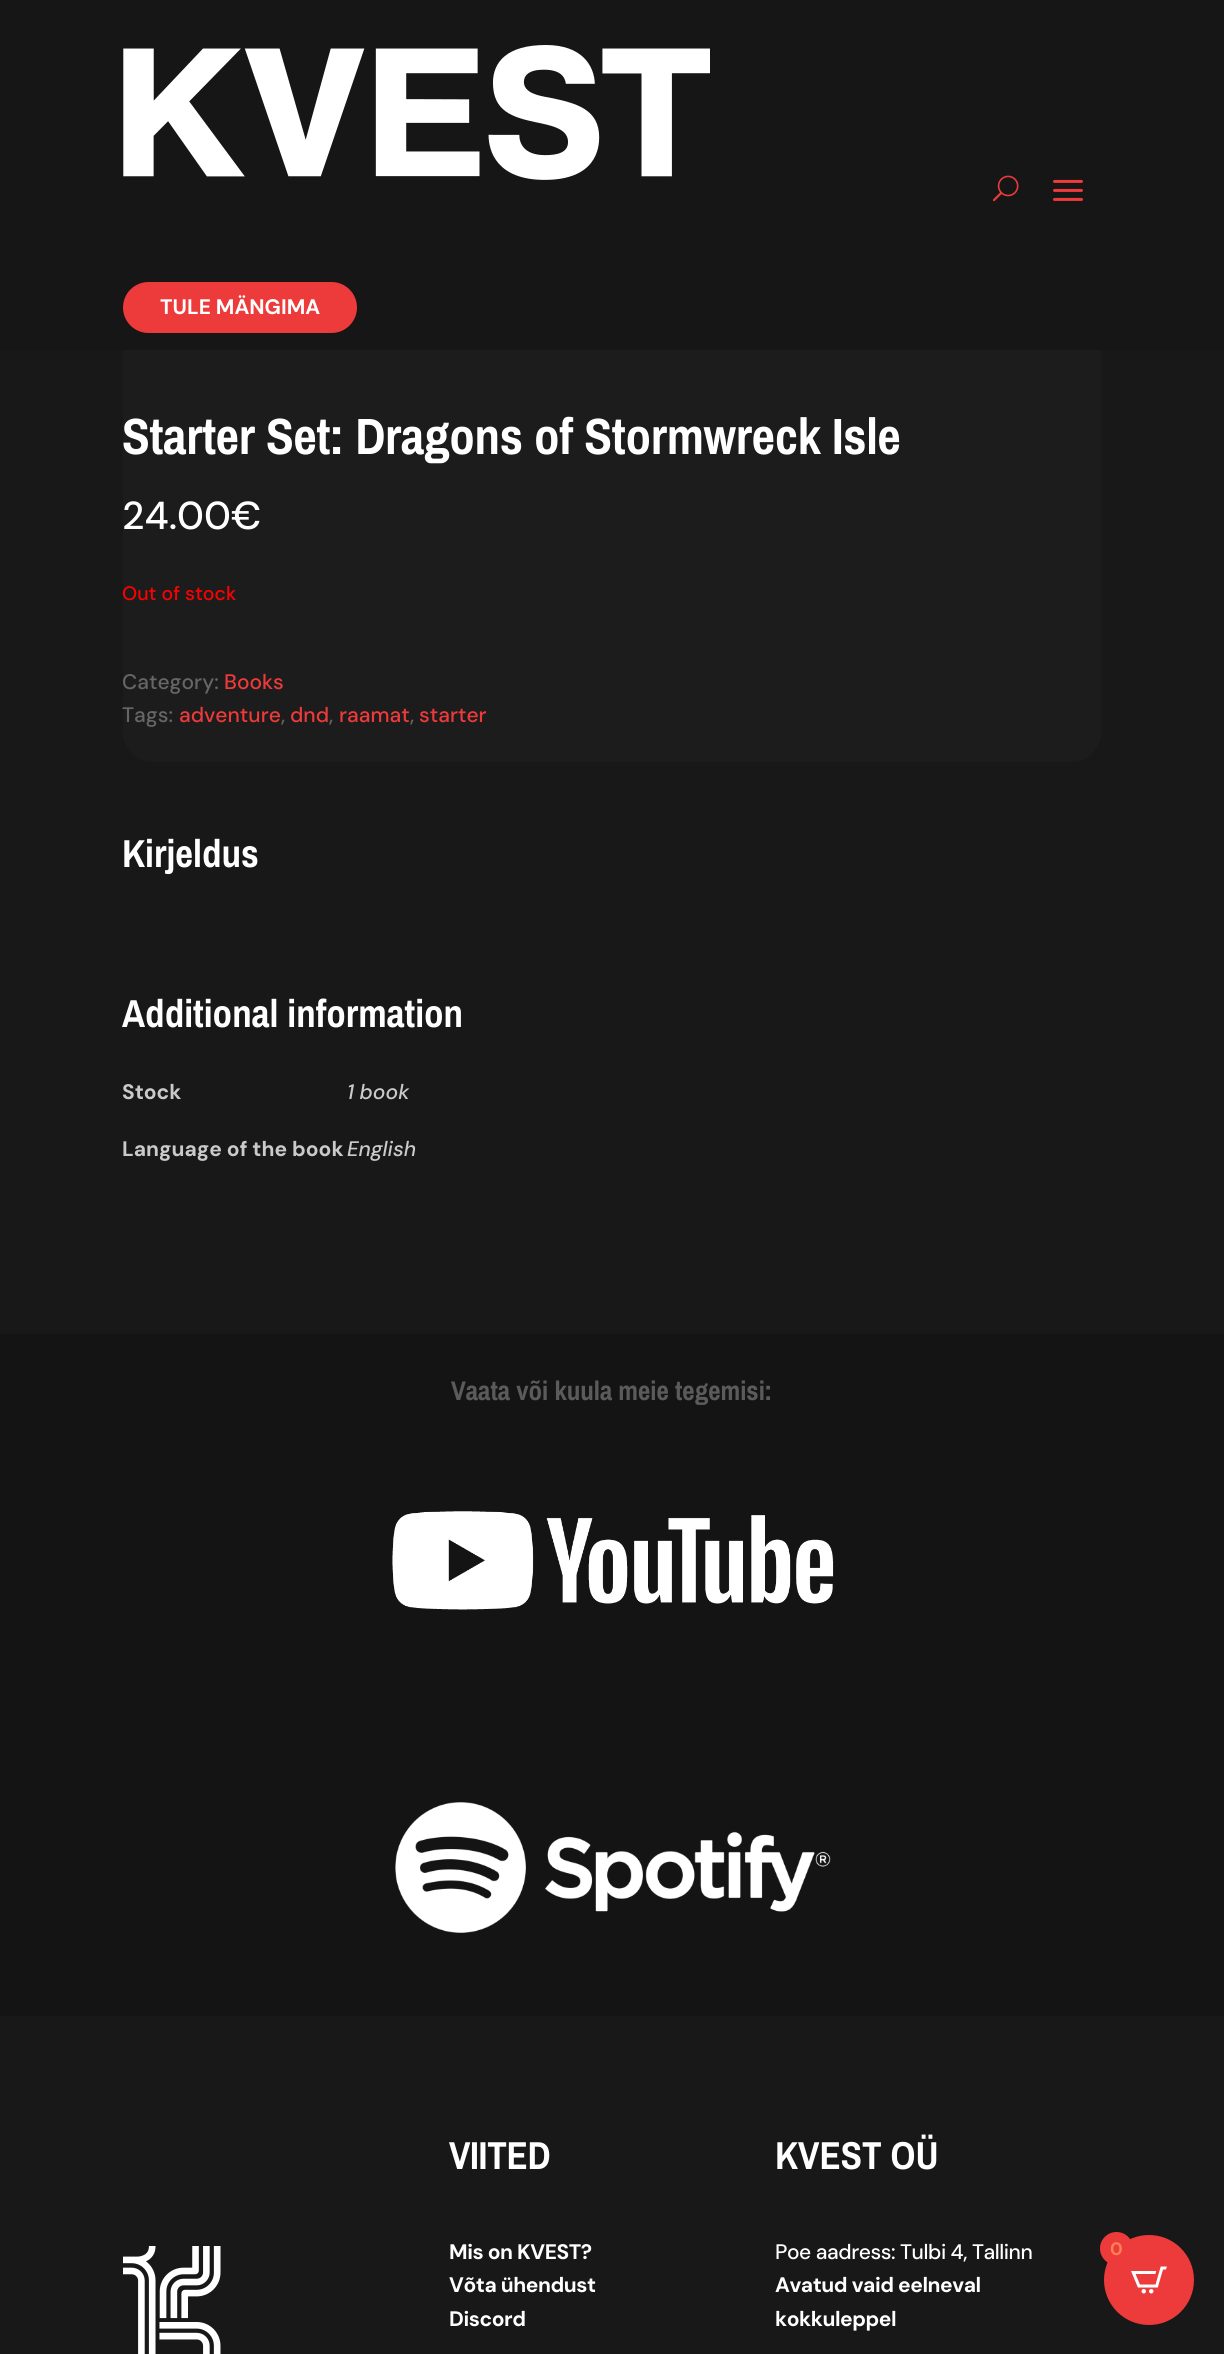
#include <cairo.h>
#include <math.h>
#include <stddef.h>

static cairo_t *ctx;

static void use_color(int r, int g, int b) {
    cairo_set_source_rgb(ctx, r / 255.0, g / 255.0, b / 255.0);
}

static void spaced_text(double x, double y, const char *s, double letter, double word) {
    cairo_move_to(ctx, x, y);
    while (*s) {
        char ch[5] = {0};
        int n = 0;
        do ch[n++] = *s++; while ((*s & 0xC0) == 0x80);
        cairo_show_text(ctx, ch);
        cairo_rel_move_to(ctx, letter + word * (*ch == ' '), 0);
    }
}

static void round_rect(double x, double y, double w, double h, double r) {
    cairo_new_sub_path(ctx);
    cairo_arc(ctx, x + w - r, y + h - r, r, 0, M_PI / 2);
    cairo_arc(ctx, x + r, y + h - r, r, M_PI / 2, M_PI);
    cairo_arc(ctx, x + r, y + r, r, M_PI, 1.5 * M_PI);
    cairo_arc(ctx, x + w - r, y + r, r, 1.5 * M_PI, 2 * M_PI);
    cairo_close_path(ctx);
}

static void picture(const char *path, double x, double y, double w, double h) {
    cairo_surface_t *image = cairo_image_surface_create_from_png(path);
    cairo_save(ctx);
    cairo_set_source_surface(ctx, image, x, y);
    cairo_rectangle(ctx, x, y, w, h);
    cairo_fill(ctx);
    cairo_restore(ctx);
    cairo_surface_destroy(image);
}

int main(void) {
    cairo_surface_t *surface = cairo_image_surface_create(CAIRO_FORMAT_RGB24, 1224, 2354);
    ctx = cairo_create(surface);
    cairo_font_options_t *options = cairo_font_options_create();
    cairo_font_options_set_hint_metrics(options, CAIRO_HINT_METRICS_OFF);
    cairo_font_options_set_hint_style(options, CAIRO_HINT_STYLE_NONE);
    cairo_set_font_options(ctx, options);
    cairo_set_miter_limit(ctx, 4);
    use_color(25, 24, 24);
    cairo_paint(ctx);
    use_color(29, 28, 28);
    round_rect(123, -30, 978, 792, 30);
    cairo_fill(ctx);
    use_color(22, 22, 22);
    cairo_rectangle(ctx, 0, 0, 1224, 350);
    cairo_fill(ctx);
    picture("img1.png", 123, 45, 587, 135);
    picture("img2.png", 992, 175, 27, 27);
    picture("img3.png", 1053, 179, 30, 22);
    use_color(237, 58, 58);
    round_rect(123, 282, 234, 51, 25.5);
    cairo_fill(ctx);
    cairo_select_font_face(ctx, "DM Sans", CAIRO_FONT_SLANT_NORMAL, CAIRO_FONT_WEIGHT_BOLD);
    cairo_set_font_size(ctx, 21);
    use_color(255, 255, 255);
    cairo_move_to(ctx, 160, 314);
    cairo_show_text(ctx, "TULE MÄNGIMA");
    cairo_select_font_face(ctx, "Archivo Narrow", CAIRO_FONT_SLANT_NORMAL, CAIRO_FONT_WEIGHT_BOLD);
    cairo_set_font_size(ctx, 51);
    spaced_text(122, 454, "Starter Set: Dragons of Stormwreck Isle", -0.3, 0);
    cairo_select_font_face(ctx, "DM Sans Medium", CAIRO_FONT_SLANT_NORMAL, CAIRO_FONT_WEIGHT_NORMAL);
    cairo_set_font_size(ctx, 39);
    cairo_move_to(ctx, 122, 529);
    cairo_show_text(ctx, "24.00€");
    cairo_set_font_size(ctx, 19.5);
    use_color(255, 0, 0);
    cairo_move_to(ctx, 122, 600);
    cairo_show_text(ctx, "Out of stock");
    cairo_set_font_size(ctx, 21);
    use_color(102, 102, 102);
    cairo_move_to(ctx, 122, 689);
    cairo_show_text(ctx, "Category:");
    use_color(237, 58, 58);
    cairo_move_to(ctx, 224, 689);
    cairo_show_text(ctx, "Books");
    use_color(102, 102, 102);
    cairo_move_to(ctx, 122, 722);
    cairo_show_text(ctx, "Tags:");
    use_color(237, 58, 58);
    cairo_move_to(ctx, 179, 722);
    cairo_show_text(ctx, "adventure");
    use_color(102, 102, 102);
    cairo_move_to(ctx, 281, 722);
    cairo_show_text(ctx, ",");
    use_color(237, 58, 58);
    cairo_move_to(ctx, 290, 722);
    cairo_show_text(ctx, "dnd");
    use_color(102, 102, 102);
    cairo_move_to(ctx, 329, 722);
    cairo_show_text(ctx, ",");
    use_color(237, 58, 58);
    cairo_move_to(ctx, 339, 722);
    cairo_show_text(ctx, "raamat");
    use_color(102, 102, 102);
    cairo_move_to(ctx, 410, 722);
    cairo_show_text(ctx, ",");
    use_color(237, 58, 58);
    cairo_move_to(ctx, 419, 722);
    cairo_show_text(ctx, "starter");
    cairo_select_font_face(ctx, "Archivo Narrow", CAIRO_FONT_SLANT_NORMAL, CAIRO_FONT_WEIGHT_BOLD);
    cairo_set_font_size(ctx, 39);
    use_color(255, 255, 255);
    cairo_move_to(ctx, 122, 867);
    cairo_show_text(ctx, "Kirjeldus");
    cairo_move_to(ctx, 122, 1027);
    cairo_show_text(ctx, "Additional information");
    cairo_select_font_face(ctx, "DM Sans", CAIRO_FONT_SLANT_NORMAL, CAIRO_FONT_WEIGHT_BOLD);
    cairo_set_font_size(ctx, 21);
    use_color(203, 201, 201);
    cairo_move_to(ctx, 122, 1099);
    cairo_show_text(ctx, "Stock");
    cairo_select_font_face(ctx, "DM Sans Medium", CAIRO_FONT_SLANT_ITALIC, CAIRO_FONT_WEIGHT_NORMAL);
    cairo_move_to(ctx, 347, 1099);
    cairo_show_text(ctx, "1 book");
    cairo_select_font_face(ctx, "DM Sans", CAIRO_FONT_SLANT_NORMAL, CAIRO_FONT_WEIGHT_BOLD);
    cairo_move_to(ctx, 122, 1156);
    cairo_show_text(ctx, "Language of the book");
    cairo_select_font_face(ctx, "DM Sans Medium", CAIRO_FONT_SLANT_ITALIC, CAIRO_FONT_WEIGHT_NORMAL);
    cairo_move_to(ctx, 347, 1156);
    cairo_show_text(ctx, "English");
    use_color(20, 20, 20);
    cairo_rectangle(ctx, 0, 1334, 1224, 682);
    cairo_fill(ctx);
    cairo_select_font_face(ctx, "Archivo Narrow", CAIRO_FONT_SLANT_NORMAL, CAIRO_FONT_WEIGHT_BOLD);
    cairo_set_font_size(ctx, 27);
    use_color(91, 91, 91);
    cairo_move_to(ctx, 451, 1400);
    cairo_show_text(ctx, "Vaata või kuula meie tegemisi:");
    picture("img4.png", 392, 1511, 442, 99);
    picture("img5.png", 395, 1802, 436, 131);
    picture("img6.png", 123, 2246, 98, 108);
    cairo_set_font_size(ctx, 39);
    use_color(255, 255, 255);
    spaced_text(449, 2169, "VIITED", -0.3, 0);
    cairo_select_font_face(ctx, "DM Sans", CAIRO_FONT_SLANT_NORMAL, CAIRO_FONT_WEIGHT_BOLD);
    cairo_set_font_size(ctx, 21);
    spaced_text(449, 2259, "Mis on KVEST?", -0.45, 0);
    spaced_text(449, 2292, "Võta ühendust", -0.45, 0);
    spaced_text(449, 2326, "Discord", -0.45, 0);
    cairo_select_font_face(ctx, "Archivo Narrow", CAIRO_FONT_SLANT_NORMAL, CAIRO_FONT_WEIGHT_BOLD);
    cairo_set_font_size(ctx, 39);
    cairo_move_to(ctx, 775, 2169);
    cairo_show_text(ctx, "KVEST OÜ");
    cairo_select_font_face(ctx, "DM Sans Medium", CAIRO_FONT_SLANT_NORMAL, CAIRO_FONT_WEIGHT_NORMAL);
    cairo_set_font_size(ctx, 21);
    spaced_text(775, 2259, "Poe aadress: Tulbi 4, Tallinn", -0.45, 0);
    cairo_select_font_face(ctx, "DM Sans", CAIRO_FONT_SLANT_NORMAL, CAIRO_FONT_WEIGHT_BOLD);
    spaced_text(775, 2292, "Avatud vaid eelneval", -0.45, 0);
    spaced_text(775, 2326, "kokkuleppel", -0.45, 0);
    use_color(237, 58, 58);
    cairo_new_path(ctx);
    cairo_arc(ctx, 1149, 2280, 45, 0, 2 * M_PI);
    cairo_fill(ctx);
    cairo_arc(ctx, 1116.5, 2248.5, 16.5, 0, 2 * M_PI);
    cairo_fill(ctx);
    cairo_set_font_size(ctx, 18);
    use_color(255, 128, 87);
    cairo_move_to(ctx, 1110, 2255);
    cairo_show_text(ctx, "0");
    picture("img7.png", 1131, 2266, 36, 28);
    cairo_surface_write_to_png(surface, "result.png");
    cairo_font_options_destroy(options);
    cairo_destroy(ctx);
    cairo_surface_destroy(surface);
    return 0;
}
